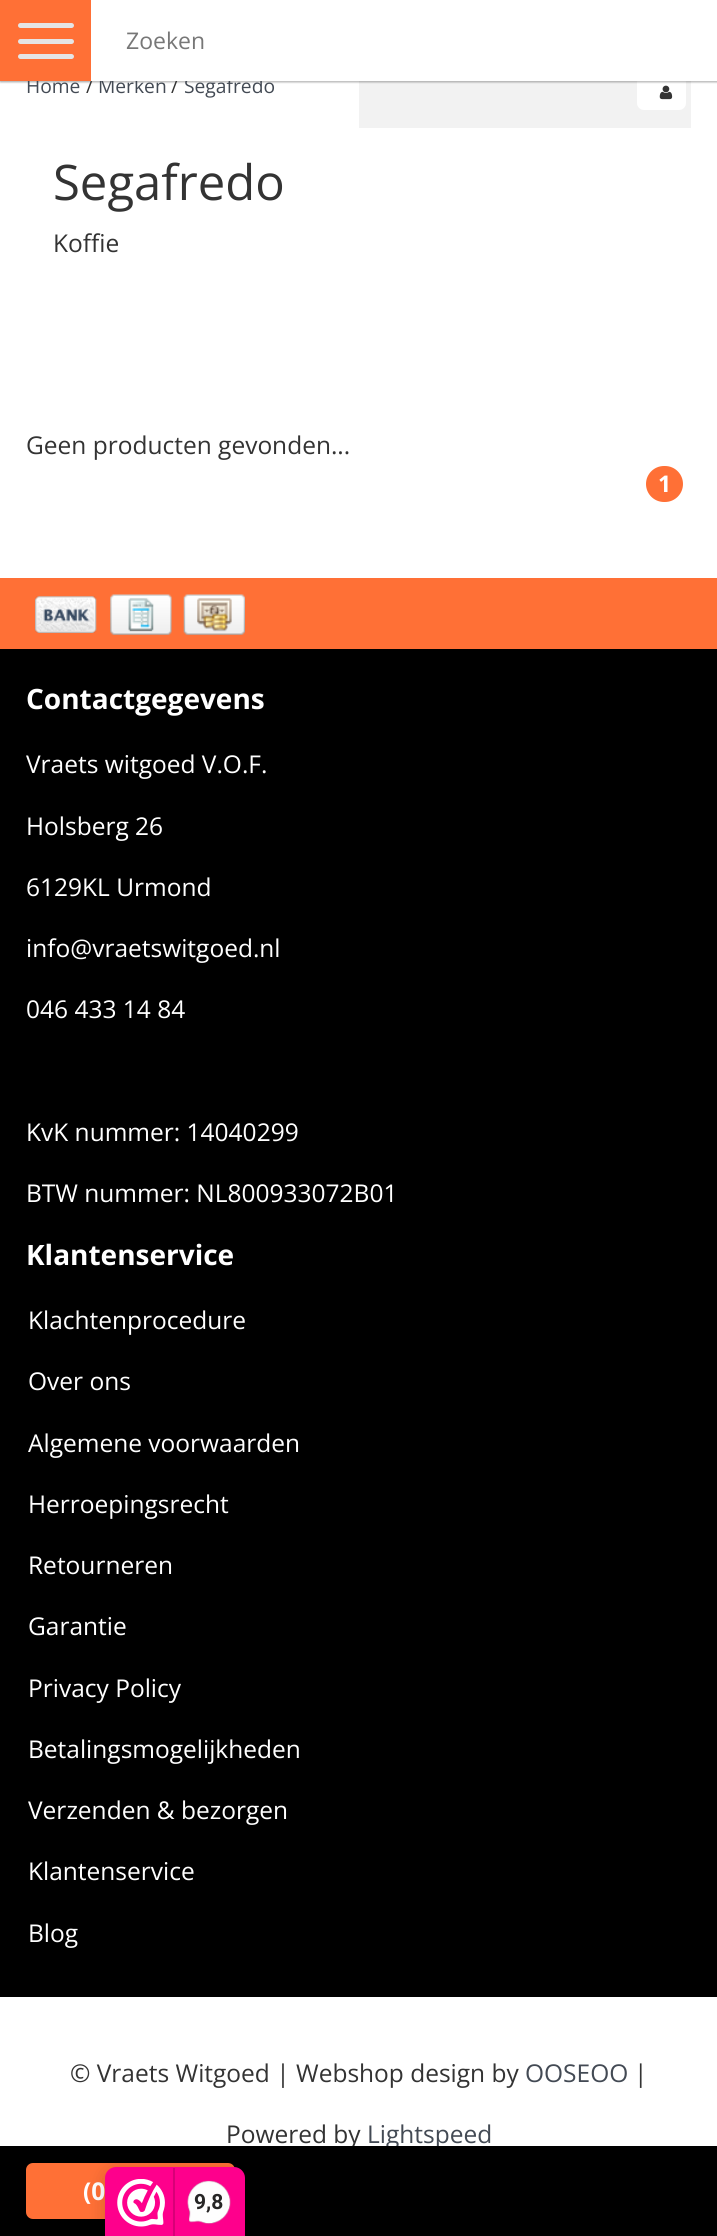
#include <cairo.h>
#include <math.h>
#include <stddef.h>

static cairo_t *ctx;

static void use_color(int r, int g, int b) {
    cairo_set_source_rgb(ctx, r / 255.0, g / 255.0, b / 255.0);
}

static void round_rect(double x, double y, double w, double h, double r) {
    cairo_new_sub_path(ctx);
    cairo_arc(ctx, x + w - r, y + h - r, r, 0, M_PI / 2);
    cairo_arc(ctx, x + r, y + h - r, r, M_PI / 2, M_PI);
    cairo_arc(ctx, x + r, y + r, r, M_PI, 1.5 * M_PI);
    cairo_arc(ctx, x + w - r, y + r, r, 1.5 * M_PI, 2 * M_PI);
    cairo_close_path(ctx);
}

static void shadow(double x, double y, double w, double h, double r, double blur, double alpha) {
    cairo_push_group_with_content(ctx, CAIRO_CONTENT_ALPHA);
    cairo_set_operator(ctx, CAIRO_OPERATOR_SOURCE);
    for (int i = 15; i >= -15 && fmin(w, h) + blur * i / 3 > 0; i -= 2) {
        double e = blur * i / 6;
        cairo_set_source_rgba(ctx, 0, 0, 0, alpha * erfc((i - 1) / 8.5) / 2);
        round_rect(x - e, y - e, w + 2 * e, h + 2 * e, fmax(0, fmin(r + e + blur * .6, fmin(w, h) / 2 + e)));
        cairo_fill(ctx);
    }
    cairo_pattern_t *soft = cairo_pop_group(ctx);
    cairo_mask(ctx, soft);
    cairo_pattern_destroy(soft);
}

static void picture(const char *path, double x, double y, double w, double h) {
    cairo_surface_t *image = cairo_image_surface_create_from_png(path);
    cairo_save(ctx);
    cairo_set_source_surface(ctx, image, x, y);
    cairo_rectangle(ctx, x, y, w, h);
    cairo_fill(ctx);
    cairo_restore(ctx);
    cairo_surface_destroy(image);
}

int main(void) {
    cairo_surface_t *surface = cairo_image_surface_create(CAIRO_FORMAT_RGB24, 717, 2236);
    ctx = cairo_create(surface);
    cairo_font_options_t *options = cairo_font_options_create();
    cairo_font_options_set_hint_metrics(options, CAIRO_HINT_METRICS_OFF);
    cairo_font_options_set_hint_style(options, CAIRO_HINT_STYLE_NONE);
    cairo_set_font_options(ctx, options);
    cairo_set_miter_limit(ctx, 4);
    use_color(255, 255, 255);
    cairo_paint(ctx);
    use_color(242, 242, 242);
    cairo_rectangle(ctx, 359, 81, 332, 47);
    cairo_fill(ctx);
    use_color(255, 255, 255);
    round_rect(637, 75, 49, 35, 7);
    cairo_fill(ctx);
    picture("img1.png", 659, 85, 14, 15);
    use_color(0, 0, 0);
    shadow(0, 2, 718, 80, 0, 1, 0.2);
    shadow(0, 2, 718, 80, 0, 1, 0.2);
    cairo_select_font_face(ctx, "Open Sans", CAIRO_FONT_SLANT_NORMAL, CAIRO_FONT_WEIGHT_NORMAL);
    cairo_set_font_size(ctx, 19.25);
    use_color(67, 74, 84);
    cairo_move_to(ctx, 26, 93);
    cairo_show_text(ctx, "Home");
    use_color(51, 51, 51);
    cairo_move_to(ctx, 86, 93);
    cairo_show_text(ctx, "/");
    use_color(255, 112, 54);
    cairo_rectangle(ctx, 0, 0, 91, 81);
    cairo_fill(ctx);
    use_color(229, 229, 229);
    round_rect(18, 23, 56, 5, 2.5);
    cairo_fill(ctx);
    round_rect(18, 39, 56, 5, 2.5);
    cairo_fill(ctx);
    round_rect(18, 54, 56, 5, 2.5);
    cairo_fill(ctx);
    cairo_set_source_rgba(ctx, 1, 1, 1, 0.1);
    cairo_new_path(ctx);
    cairo_move_to(ctx, 91, 80);
    cairo_line_to(ctx, 91, 82);
    cairo_line_to(ctx, 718, 82);
    cairo_line_to(ctx, 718, 2);
    cairo_line_to(ctx, 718, 80);
    cairo_close_path(ctx);
    cairo_fill(ctx);
    use_color(67, 74, 84);
    cairo_move_to(ctx, 98, 93);
    cairo_show_text(ctx, "Merken");
    use_color(51, 51, 51);
    cairo_move_to(ctx, 171, 93);
    cairo_show_text(ctx, "/");
    use_color(67, 74, 84);
    cairo_move_to(ctx, 184, 93);
    cairo_show_text(ctx, "Segafredo");
    use_color(255, 255, 255);
    cairo_rectangle(ctx, 91, 0, 626, 81);
    cairo_fill(ctx);
    cairo_set_font_size(ctx, 23);
    use_color(119, 119, 119);
    cairo_move_to(ctx, 126, 49);
    cairo_show_text(ctx, "Zoeken");
    cairo_set_font_size(ctx, 49);
    use_color(51, 51, 51);
    cairo_move_to(ctx, 53, 200);
    cairo_show_text(ctx, "Segafredo");
    cairo_set_font_size(ctx, 24.5);
    cairo_move_to(ctx, 53, 252);
    cairo_show_text(ctx, "Koffie");
    cairo_move_to(ctx, 26, 454);
    cairo_show_text(ctx, "Geen producten gevonden...");
    use_color(255, 112, 54);
    round_rect(646, 466, 37, 36, 18);
    cairo_fill(ctx);
    cairo_select_font_face(ctx, "Open Sans", CAIRO_FONT_SLANT_NORMAL, CAIRO_FONT_WEIGHT_BOLD);
    cairo_set_font_size(ctx, 23);
    use_color(255, 255, 255);
    cairo_move_to(ctx, 658, 492);
    cairo_show_text(ctx, "1");
    use_color(255, 112, 54);
    cairo_rectangle(ctx, 0, 578, 717, 71);
    cairo_fill(ctx);
    picture("img2.png", 35, 596, 62, 37);
    picture("img3.png", 110, 594, 62, 41);
    picture("img4.png", 183, 594, 62, 41);
    use_color(0, 0, 0);
    cairo_rectangle(ctx, 0, 649, 717, 1348);
    cairo_fill(ctx);
    cairo_set_font_size(ctx, 28);
    use_color(255, 255, 255);
    cairo_move_to(ctx, 26, 709);
    cairo_show_text(ctx, "Contactgegevens");
    cairo_select_font_face(ctx, "Open Sans", CAIRO_FONT_SLANT_NORMAL, CAIRO_FONT_WEIGHT_NORMAL);
    cairo_set_font_size(ctx, 24.5);
    cairo_move_to(ctx, 26, 773);
    cairo_show_text(ctx, "Vraets witgoed V.O.F.");
    cairo_move_to(ctx, 26, 835);
    cairo_show_text(ctx, "Holsberg 26");
    cairo_move_to(ctx, 26, 896);
    cairo_show_text(ctx, "6129KL Urmond");
    cairo_move_to(ctx, 26, 957);
    cairo_show_text(ctx, "info@vraetswitgoed.nl");
    cairo_move_to(ctx, 26, 1018);
    cairo_show_text(ctx, "046 433 14 84");
    cairo_move_to(ctx, 26, 1141);
    cairo_show_text(ctx, "KvK nummer: 14040299");
    cairo_move_to(ctx, 26, 1202);
    cairo_show_text(ctx, "BTW nummer: NL800933072B01");
    cairo_select_font_face(ctx, "Open Sans", CAIRO_FONT_SLANT_NORMAL, CAIRO_FONT_WEIGHT_BOLD);
    cairo_set_font_size(ctx, 28);
    cairo_move_to(ctx, 26, 1265);
    cairo_show_text(ctx, "Klantenservice");
    cairo_select_font_face(ctx, "Open Sans", CAIRO_FONT_SLANT_NORMAL, CAIRO_FONT_WEIGHT_NORMAL);
    cairo_set_font_size(ctx, 24.5);
    cairo_move_to(ctx, 28, 1329);
    cairo_show_text(ctx, "Klachtenprocedure");
    cairo_move_to(ctx, 28, 1390);
    cairo_show_text(ctx, "Over ons");
    cairo_move_to(ctx, 28, 1452);
    cairo_show_text(ctx, "Algemene voorwaarden");
    cairo_move_to(ctx, 28, 1513);
    cairo_show_text(ctx, "Herroepingsrecht");
    cairo_move_to(ctx, 28, 1574);
    cairo_show_text(ctx, "Retourneren");
    cairo_move_to(ctx, 28, 1635);
    cairo_show_text(ctx, "Garantie");
    cairo_move_to(ctx, 28, 1697);
    cairo_show_text(ctx, "Privacy Policy");
    cairo_move_to(ctx, 28, 1758);
    cairo_show_text(ctx, "Betalingsmogelijkheden");
    cairo_move_to(ctx, 28, 1819);
    cairo_show_text(ctx, "Verzenden & bezorgen");
    cairo_move_to(ctx, 28, 1880);
    cairo_show_text(ctx, "Klantenservice");
    cairo_move_to(ctx, 28, 1942);
    cairo_show_text(ctx, "Blog");
    use_color(51, 51, 51);
    cairo_move_to(ctx, 70, 2082);
    cairo_show_text(ctx, "© Vraets Witgoed | Webshop design by");
    use_color(67, 74, 84);
    cairo_move_to(ctx, 525, 2082);
    cairo_show_text(ctx, "OOSEOO");
    use_color(51, 51, 51);
    cairo_move_to(ctx, 634, 2082);
    cairo_show_text(ctx, "|");
    cairo_move_to(ctx, 226, 2143);
    cairo_show_text(ctx, "Powered by");
    use_color(67, 74, 84);
    cairo_move_to(ctx, 367, 2143);
    cairo_show_text(ctx, "Lightspeed");
    use_color(0, 0, 0);
    cairo_rectangle(ctx, 0, 2146, 717, 90);
    cairo_fill(ctx);
    use_color(255, 112, 54);
    round_rect(26, 2163, 209, 56, 7);
    cairo_fill(ctx);
    cairo_select_font_face(ctx, "Open Sans", CAIRO_FONT_SLANT_NORMAL, CAIRO_FONT_WEIGHT_BOLD);
    use_color(255, 255, 255);
    cairo_move_to(ctx, 83, 2200);
    cairo_show_text(ctx, "(0");
    use_color(0, 0, 0);
    shadow(105, 2170, 140, 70, 11, 9, 0.15);
    use_color(254, 0, 140);
    cairo_new_path(ctx);
    cairo_move_to(ctx, 116, 2167);
    cairo_line_to(ctx, 234, 2167);
    cairo_curve_to(ctx, 240, 2167, 245, 2172, 245, 2178);
    cairo_line_to(ctx, 245, 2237);
    cairo_line_to(ctx, 105, 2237);
    cairo_line_to(ctx, 105, 2178);
    cairo_curve_to(ctx, 105, 2172, 110, 2167, 116, 2167);
    cairo_close_path(ctx);
    cairo_fill(ctx);
    picture("img5.png", 117, 2179, 48, 48);
    use_color(216, 0, 119);
    cairo_rectangle(ctx, 173, 2168, 2, 68);
    cairo_fill(ctx);
    picture("img6.png", 187, 2180, 44, 45);
    cairo_select_font_face(ctx, "Roboto", CAIRO_FONT_SLANT_NORMAL, CAIRO_FONT_WEIGHT_BOLD);
    cairo_set_font_size(ctx, 21);
    use_color(39, 38, 38);
    cairo_move_to(ctx, 194, 2209);
    cairo_show_text(ctx, "9,8");
    cairo_surface_write_to_png(surface, "result.png");
    cairo_font_options_destroy(options);
    cairo_destroy(ctx);
    cairo_surface_destroy(surface);
    return 0;
}
